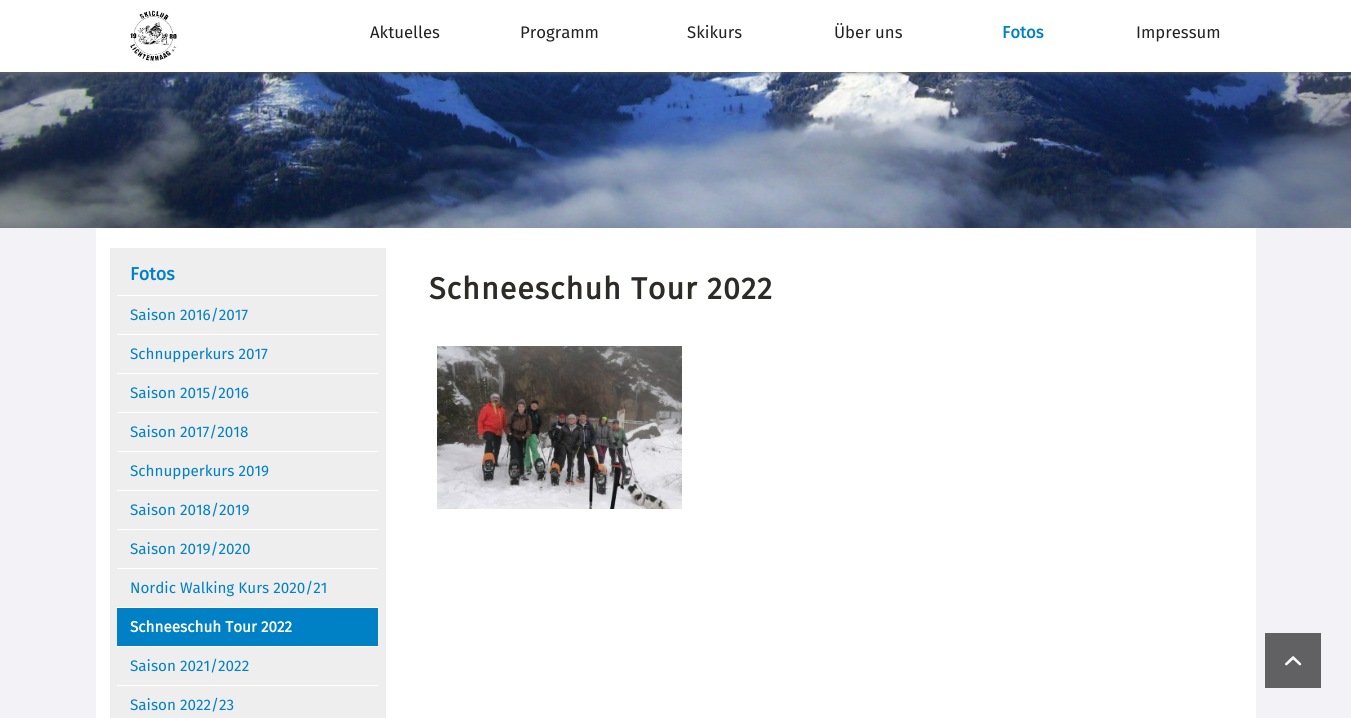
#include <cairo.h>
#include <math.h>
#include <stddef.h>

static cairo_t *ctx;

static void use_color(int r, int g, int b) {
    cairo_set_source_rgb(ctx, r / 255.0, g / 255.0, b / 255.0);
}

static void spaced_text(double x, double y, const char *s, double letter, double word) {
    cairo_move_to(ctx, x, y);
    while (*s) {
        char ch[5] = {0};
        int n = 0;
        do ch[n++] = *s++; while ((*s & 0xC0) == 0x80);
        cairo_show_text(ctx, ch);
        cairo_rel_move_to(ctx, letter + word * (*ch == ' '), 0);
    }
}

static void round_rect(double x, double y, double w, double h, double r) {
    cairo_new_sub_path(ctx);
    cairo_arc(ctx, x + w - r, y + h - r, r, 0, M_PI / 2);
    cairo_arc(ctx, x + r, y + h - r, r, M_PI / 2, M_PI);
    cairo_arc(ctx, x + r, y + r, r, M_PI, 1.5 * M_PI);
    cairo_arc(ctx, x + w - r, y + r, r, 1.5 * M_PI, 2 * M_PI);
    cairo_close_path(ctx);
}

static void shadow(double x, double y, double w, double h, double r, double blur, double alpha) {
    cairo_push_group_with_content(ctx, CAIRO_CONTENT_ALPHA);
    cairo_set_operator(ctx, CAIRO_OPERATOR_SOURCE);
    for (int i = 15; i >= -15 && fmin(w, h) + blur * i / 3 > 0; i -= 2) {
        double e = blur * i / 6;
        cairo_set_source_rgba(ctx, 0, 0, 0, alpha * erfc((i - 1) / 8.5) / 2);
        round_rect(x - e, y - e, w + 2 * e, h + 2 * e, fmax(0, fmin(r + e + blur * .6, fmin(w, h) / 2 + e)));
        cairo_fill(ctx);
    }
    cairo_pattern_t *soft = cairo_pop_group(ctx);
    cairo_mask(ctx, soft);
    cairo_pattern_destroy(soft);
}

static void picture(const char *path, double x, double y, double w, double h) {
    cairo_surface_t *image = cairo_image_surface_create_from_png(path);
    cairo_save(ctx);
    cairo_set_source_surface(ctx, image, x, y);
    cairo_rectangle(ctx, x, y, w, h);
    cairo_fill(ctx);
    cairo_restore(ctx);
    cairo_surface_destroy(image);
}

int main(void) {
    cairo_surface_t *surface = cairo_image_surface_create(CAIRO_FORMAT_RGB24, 1351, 718);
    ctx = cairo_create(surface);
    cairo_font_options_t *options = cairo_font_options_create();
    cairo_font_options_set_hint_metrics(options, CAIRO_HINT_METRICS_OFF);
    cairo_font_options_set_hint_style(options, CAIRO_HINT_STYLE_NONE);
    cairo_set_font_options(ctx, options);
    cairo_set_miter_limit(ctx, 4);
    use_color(243, 242, 247);
    cairo_paint(ctx);
    picture("img2.png", 0, 72, 1351, 156);
    use_color(102, 102, 102);
    shadow(0, 0, 1351, 72, 0, 2.5, 1);
    use_color(255, 255, 255);
    cairo_rectangle(ctx, 0, 0, 1351, 72);
    cairo_fill(ctx);
    picture("img1.png", 130, 10, 47, 51);
    cairo_select_font_face(ctx, "Fira Sans", CAIRO_FONT_SLANT_NORMAL, CAIRO_FONT_WEIGHT_NORMAL);
    cairo_set_font_size(ctx, 16.75);
    use_color(34, 34, 34);
    cairo_move_to(ctx, 370, 38);
    cairo_show_text(ctx, "Aktuelles");
    cairo_move_to(ctx, 520, 38);
    cairo_show_text(ctx, "Programm");
    cairo_move_to(ctx, 687, 38);
    cairo_show_text(ctx, "Skikurs");
    cairo_move_to(ctx, 834, 38);
    cairo_show_text(ctx, "Über uns");
    cairo_select_font_face(ctx, "Fira Sans", CAIRO_FONT_SLANT_NORMAL, CAIRO_FONT_WEIGHT_BOLD);
    use_color(0, 128, 197);
    cairo_move_to(ctx, 1002, 38);
    cairo_show_text(ctx, "Fotos");
    cairo_select_font_face(ctx, "Fira Sans", CAIRO_FONT_SLANT_NORMAL, CAIRO_FONT_WEIGHT_NORMAL);
    use_color(34, 34, 34);
    cairo_move_to(ctx, 1136, 38);
    cairo_show_text(ctx, "Impressum");
    use_color(255, 255, 255);
    cairo_rectangle(ctx, 96, 228, 1160, 490);
    cairo_fill(ctx);
    use_color(238, 238, 238);
    cairo_rectangle(ctx, 110, 248, 276, 470);
    cairo_fill(ctx);
    cairo_select_font_face(ctx, "Fira Sans", CAIRO_FONT_SLANT_NORMAL, CAIRO_FONT_WEIGHT_BOLD);
    cairo_set_font_size(ctx, 18);
    use_color(0, 128, 197);
    cairo_move_to(ctx, 130, 280);
    cairo_show_text(ctx, "Fotos");
    use_color(255, 255, 255);
    cairo_rectangle(ctx, 117, 295, 261, 1);
    cairo_fill(ctx);
    cairo_select_font_face(ctx, "Fira Sans", CAIRO_FONT_SLANT_NORMAL, CAIRO_FONT_WEIGHT_NORMAL);
    cairo_set_font_size(ctx, 15.25);
    use_color(0, 128, 197);
    cairo_move_to(ctx, 130, 320);
    cairo_show_text(ctx, "Saison 2016/2017");
    use_color(255, 255, 255);
    cairo_rectangle(ctx, 117, 334, 261, 1);
    cairo_fill(ctx);
    use_color(0, 128, 197);
    cairo_move_to(ctx, 130, 359);
    cairo_show_text(ctx, "Schnupperkurs 2017");
    use_color(255, 255, 255);
    cairo_rectangle(ctx, 117, 373, 261, 1);
    cairo_fill(ctx);
    use_color(0, 128, 197);
    cairo_move_to(ctx, 130, 398);
    cairo_show_text(ctx, "Saison 2015/2016");
    use_color(255, 255, 255);
    cairo_rectangle(ctx, 117, 412, 261, 1);
    cairo_fill(ctx);
    use_color(0, 128, 197);
    cairo_move_to(ctx, 130, 437);
    cairo_show_text(ctx, "Saison 2017/2018");
    use_color(255, 255, 255);
    cairo_rectangle(ctx, 117, 451, 261, 1);
    cairo_fill(ctx);
    use_color(0, 128, 197);
    cairo_move_to(ctx, 130, 476);
    cairo_show_text(ctx, "Schnupperkurs 2019");
    use_color(255, 255, 255);
    cairo_rectangle(ctx, 117, 490, 261, 1);
    cairo_fill(ctx);
    use_color(0, 128, 197);
    cairo_move_to(ctx, 130, 515);
    cairo_show_text(ctx, "Saison 2018/2019");
    use_color(255, 255, 255);
    cairo_rectangle(ctx, 117, 529, 261, 1);
    cairo_fill(ctx);
    use_color(0, 128, 197);
    cairo_move_to(ctx, 130, 554);
    cairo_show_text(ctx, "Saison 2019/2020");
    use_color(255, 255, 255);
    cairo_rectangle(ctx, 117, 568, 261, 1);
    cairo_fill(ctx);
    use_color(0, 128, 197);
    cairo_move_to(ctx, 130, 593);
    cairo_show_text(ctx, "Nordic Walking Kurs 2020/21");
    cairo_rectangle(ctx, 117, 608, 261, 38);
    cairo_fill(ctx);
    use_color(255, 255, 255);
    cairo_rectangle(ctx, 117, 607, 261, 1);
    cairo_fill(ctx);
    cairo_select_font_face(ctx, "Fira Sans", CAIRO_FONT_SLANT_NORMAL, CAIRO_FONT_WEIGHT_BOLD);
    cairo_move_to(ctx, 130, 632);
    cairo_show_text(ctx, "Schneeschuh Tour 2022");
    cairo_rectangle(ctx, 117, 646, 261, 1);
    cairo_fill(ctx);
    cairo_select_font_face(ctx, "Fira Sans", CAIRO_FONT_SLANT_NORMAL, CAIRO_FONT_WEIGHT_NORMAL);
    use_color(0, 128, 197);
    cairo_move_to(ctx, 130, 671);
    cairo_show_text(ctx, "Saison 2021/2022");
    use_color(255, 255, 255);
    cairo_rectangle(ctx, 117, 685, 261, 1);
    cairo_fill(ctx);
    use_color(0, 128, 197);
    cairo_move_to(ctx, 130, 710);
    cairo_show_text(ctx, "Saison 2022/23");
    cairo_select_font_face(ctx, "Fira Sans", CAIRO_FONT_SLANT_NORMAL, CAIRO_FONT_WEIGHT_BOLD);
    cairo_set_font_size(ctx, 30.4);
    use_color(44, 43, 40);
    spaced_text(429, 299, "Schneeschuh Tour 2022", 1, 0);
    picture("img3.png", 437, 346, 245, 163);
    use_color(97, 97, 99);
    cairo_rectangle(ctx, 1265, 633, 56, 55);
    cairo_fill(ctx);
    picture("img4.png", 1285, 656, 17, 10);
    cairo_surface_write_to_png(surface, "result.png");
    cairo_font_options_destroy(options);
    cairo_destroy(ctx);
    cairo_surface_destroy(surface);
    return 0;
}
